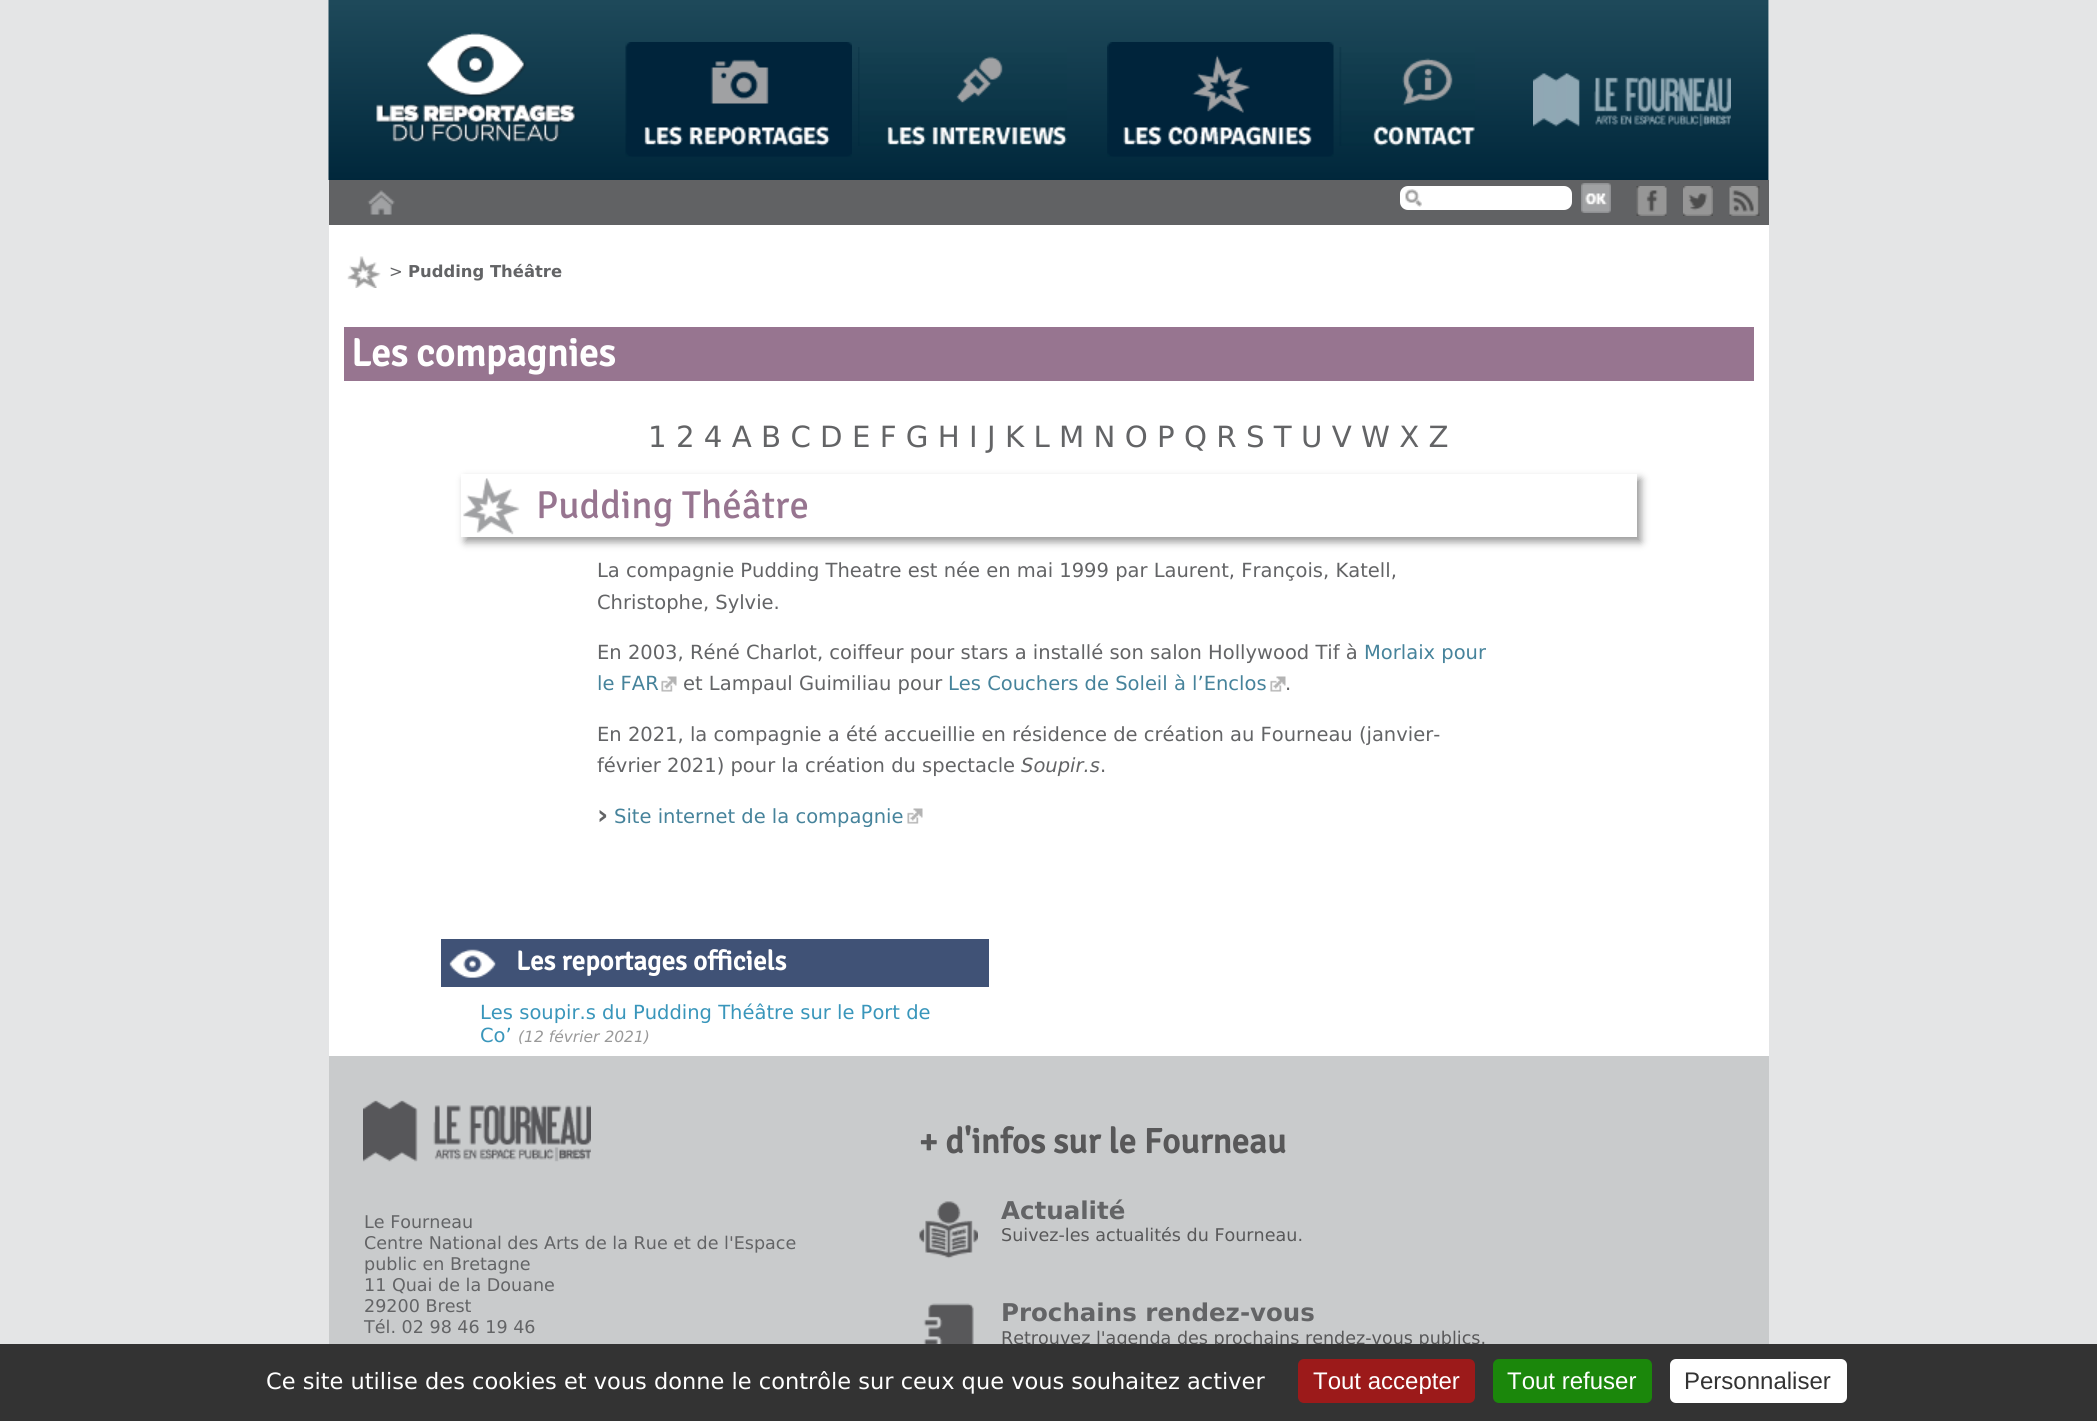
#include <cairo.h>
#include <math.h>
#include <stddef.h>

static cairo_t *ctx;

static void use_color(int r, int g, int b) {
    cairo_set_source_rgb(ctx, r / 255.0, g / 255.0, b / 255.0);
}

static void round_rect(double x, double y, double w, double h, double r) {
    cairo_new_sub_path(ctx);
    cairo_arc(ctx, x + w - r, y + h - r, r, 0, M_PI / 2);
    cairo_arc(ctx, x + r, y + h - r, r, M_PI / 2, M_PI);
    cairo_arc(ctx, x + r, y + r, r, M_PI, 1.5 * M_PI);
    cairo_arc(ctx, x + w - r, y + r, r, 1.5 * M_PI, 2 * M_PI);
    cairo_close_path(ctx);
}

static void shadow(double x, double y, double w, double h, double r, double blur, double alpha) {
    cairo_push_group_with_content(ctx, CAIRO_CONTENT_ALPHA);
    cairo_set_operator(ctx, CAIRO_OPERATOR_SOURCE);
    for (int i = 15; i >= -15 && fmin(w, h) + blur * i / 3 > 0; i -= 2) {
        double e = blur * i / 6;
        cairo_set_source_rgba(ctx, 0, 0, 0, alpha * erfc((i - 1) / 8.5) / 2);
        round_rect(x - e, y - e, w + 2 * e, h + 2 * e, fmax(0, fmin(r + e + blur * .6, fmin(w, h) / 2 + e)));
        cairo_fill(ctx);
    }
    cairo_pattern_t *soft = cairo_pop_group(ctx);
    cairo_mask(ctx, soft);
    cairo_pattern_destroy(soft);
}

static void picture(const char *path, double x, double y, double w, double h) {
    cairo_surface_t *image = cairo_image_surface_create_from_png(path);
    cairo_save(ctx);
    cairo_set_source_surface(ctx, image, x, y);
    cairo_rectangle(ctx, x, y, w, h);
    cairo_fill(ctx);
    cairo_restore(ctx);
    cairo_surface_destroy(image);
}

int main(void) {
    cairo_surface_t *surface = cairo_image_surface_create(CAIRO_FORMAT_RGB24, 2097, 1421);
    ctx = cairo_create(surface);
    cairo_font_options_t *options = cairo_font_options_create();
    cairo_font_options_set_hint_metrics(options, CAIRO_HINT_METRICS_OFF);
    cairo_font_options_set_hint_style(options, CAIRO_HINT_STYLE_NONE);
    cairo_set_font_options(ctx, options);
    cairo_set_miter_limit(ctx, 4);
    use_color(228, 229, 230);
    cairo_paint(ctx);
    use_color(255, 255, 255);
    cairo_rectangle(ctx, 329, 0, 1440, 1056);
    cairo_fill(ctx);
    picture("img1.png", 328, 0, 1441, 180);
    picture("img2.png", 376, 32, 200, 111);
    picture("img3.png", 625, 42, 227, 115);
    picture("img4.png", 858, 47, 209, 99);
    picture("img5.png", 1107, 42, 227, 115);
    picture("img6.png", 1339, 47, 136, 99);
    picture("img7.png", 1533, 73, 198, 54);
    use_color(97, 98, 100);
    cairo_rectangle(ctx, 329, 180, 1440, 45);
    cairo_fill(ctx);
    picture("img8.png", 367, 190, 28, 25);
    use_color(255, 255, 255);
    round_rect(1400, 186, 172, 24, 8);
    cairo_fill(ctx);
    picture("img9.png", 1405, 189, 17, 18);
    picture("img10.png", 1581, 183, 30, 30);
    picture("img11.png", 1636, 186, 31, 30);
    picture("img12.png", 1683, 186, 30, 30);
    picture("img13.png", 1729, 186, 31, 30);
    picture("img14.png", 347, 256, 34, 32);
    cairo_select_font_face(ctx, "DejaVu Sans", CAIRO_FONT_SLANT_NORMAL, CAIRO_FONT_WEIGHT_NORMAL);
    cairo_set_font_size(ctx, 16.4);
    use_color(99, 100, 102);
    cairo_move_to(ctx, 389, 277);
    cairo_show_text(ctx, ">");
    cairo_select_font_face(ctx, "DejaVu Sans", CAIRO_FONT_SLANT_NORMAL, CAIRO_FONT_WEIGHT_BOLD);
    cairo_move_to(ctx, 408, 277);
    cairo_show_text(ctx, "Pudding Théâtre");
    use_color(151, 117, 144);
    cairo_rectangle(ctx, 344, 327, 1410, 54);
    cairo_fill(ctx);
    cairo_select_font_face(ctx, "Signika", CAIRO_FONT_SLANT_NORMAL, CAIRO_FONT_WEIGHT_BOLD);
    cairo_set_font_size(ctx, 39);
    use_color(255, 255, 255);
    cairo_move_to(ctx, 351, 366);
    cairo_show_text(ctx, "Les compagnies");
    cairo_select_font_face(ctx, "DejaVu Sans", CAIRO_FONT_SLANT_NORMAL, CAIRO_FONT_WEIGHT_NORMAL);
    cairo_set_font_size(ctx, 29.25);
    use_color(99, 100, 102);
    cairo_move_to(ctx, 648, 447);
    cairo_show_text(ctx, "1 2 4 A B C D E F G H I J K L M N O P Q R S T U V W X Z");
    cairo_save(ctx);
    cairo_set_fill_rule(ctx, CAIRO_FILL_RULE_EVEN_ODD);
    cairo_new_path(ctx);
    cairo_move_to(ctx, 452, 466);
    cairo_line_to(ctx, 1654, 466);
    cairo_line_to(ctx, 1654, 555);
    cairo_line_to(ctx, 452, 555);
    cairo_close_path(ctx);
    cairo_move_to(ctx, 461, 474);
    cairo_line_to(ctx, 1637, 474);
    cairo_line_to(ctx, 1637, 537);
    cairo_line_to(ctx, 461, 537);
    cairo_close_path(ctx);
    cairo_clip(ctx);
    use_color(153, 153, 153);
    shadow(465, 479, 1176, 63, 0, 4, 1);
    cairo_restore(ctx);
    picture("img15.png", 463, 478, 57, 57);
    cairo_select_font_face(ctx, "Signika", CAIRO_FONT_SLANT_NORMAL, CAIRO_FONT_WEIGHT_NORMAL);
    cairo_set_font_size(ctx, 39);
    use_color(151, 117, 144);
    cairo_move_to(ctx, 536, 518);
    cairo_show_text(ctx, "Pudding Théâtre");
    cairo_select_font_face(ctx, "DejaVu Sans", CAIRO_FONT_SLANT_NORMAL, CAIRO_FONT_WEIGHT_NORMAL);
    cairo_set_font_size(ctx, 19.5);
    use_color(99, 100, 102);
    cairo_move_to(ctx, 597, 577);
    cairo_show_text(ctx, "La compagnie Pudding Theatre est née en mai 1999 par Laurent, François, Katell,");
    cairo_move_to(ctx, 597, 609);
    cairo_show_text(ctx, "Christophe, Sylvie.");
    cairo_move_to(ctx, 597, 659);
    cairo_show_text(ctx, "En 2003, Réné Charlot, coiffeur pour stars a installé son salon Hollywood Tif à");
    use_color(70, 131, 155);
    cairo_move_to(ctx, 1364, 659);
    cairo_show_text(ctx, "Morlaix pour");
    cairo_move_to(ctx, 597, 690);
    cairo_show_text(ctx, "le FAR");
    picture("img16.png", 661, 676, 16, 16);
    use_color(99, 100, 102);
    cairo_move_to(ctx, 683, 690);
    cairo_show_text(ctx, "et Lampaul Guimiliau pour");
    use_color(70, 131, 155);
    cairo_move_to(ctx, 948, 690);
    cairo_show_text(ctx, "Les Couchers de Soleil à l’Enclos");
    picture("img17.png", 1270, 676, 16, 16);
    use_color(99, 100, 102);
    cairo_move_to(ctx, 1285, 690);
    cairo_show_text(ctx, ".");
    cairo_move_to(ctx, 597, 741);
    cairo_show_text(ctx, "En 2021, la compagnie a été accueillie en résidence de création au Fourneau (janvier-");
    cairo_move_to(ctx, 597, 772);
    cairo_show_text(ctx, "février 2021) pour la création du spectacle");
    cairo_select_font_face(ctx, "DejaVu Sans", CAIRO_FONT_SLANT_ITALIC, CAIRO_FONT_WEIGHT_NORMAL);
    cairo_move_to(ctx, 1021, 772);
    cairo_show_text(ctx, "Soupir.s");
    cairo_select_font_face(ctx, "DejaVu Sans", CAIRO_FONT_SLANT_NORMAL, CAIRO_FONT_WEIGHT_NORMAL);
    cairo_move_to(ctx, 1100, 772);
    cairo_show_text(ctx, ".");
    cairo_select_font_face(ctx, "DejaVu Sans", CAIRO_FONT_SLANT_NORMAL, CAIRO_FONT_WEIGHT_BOLD);
    cairo_set_font_size(ctx, 27.25);
    cairo_move_to(ctx, 597, 824);
    cairo_show_text(ctx, "›");
    cairo_select_font_face(ctx, "DejaVu Sans", CAIRO_FONT_SLANT_NORMAL, CAIRO_FONT_WEIGHT_NORMAL);
    cairo_set_font_size(ctx, 19.5);
    use_color(70, 131, 155);
    cairo_move_to(ctx, 614, 823);
    cairo_show_text(ctx, "Site internet de la compagnie");
    picture("img17.png", 907, 808, 16, 16);
    use_color(64, 82, 118);
    cairo_rectangle(ctx, 441, 939, 548, 48);
    cairo_fill(ctx);
    picture("img18.png", 449, 949, 47, 29);
    cairo_select_font_face(ctx, "Signika", CAIRO_FONT_SLANT_NORMAL, CAIRO_FONT_WEIGHT_BOLD);
    cairo_set_font_size(ctx, 27.25);
    use_color(255, 255, 255);
    cairo_move_to(ctx, 516, 970);
    cairo_show_text(ctx, "Les reportages officiels");
    cairo_select_font_face(ctx, "DejaVu Sans", CAIRO_FONT_SLANT_NORMAL, CAIRO_FONT_WEIGHT_NORMAL);
    cairo_set_font_size(ctx, 19.5);
    use_color(57, 150, 187);
    cairo_move_to(ctx, 480, 1019);
    cairo_show_text(ctx, "Les soupir.s du Pudding Théâtre sur le Port de");
    cairo_move_to(ctx, 480, 1042);
    cairo_show_text(ctx, "Co’");
    cairo_select_font_face(ctx, "DejaVu Sans", CAIRO_FONT_SLANT_ITALIC, CAIRO_FONT_WEIGHT_NORMAL);
    cairo_set_font_size(ctx, 15.5);
    use_color(153, 153, 153);
    cairo_move_to(ctx, 518, 1042);
    cairo_show_text(ctx, "(12 février 2021)");
    use_color(201, 203, 204);
    cairo_rectangle(ctx, 329, 1056, 1440, 288);
    cairo_fill(ctx);
    picture("img19.png", 363, 1100, 228, 62);
    cairo_select_font_face(ctx, "DejaVu Sans", CAIRO_FONT_SLANT_NORMAL, CAIRO_FONT_WEIGHT_NORMAL);
    cairo_set_font_size(ctx, 17.55);
    use_color(99, 100, 102);
    cairo_move_to(ctx, 364, 1228);
    cairo_show_text(ctx, "Le Fourneau");
    cairo_move_to(ctx, 364, 1249);
    cairo_show_text(ctx, "Centre National des Arts de la Rue et de l'Espace");
    cairo_move_to(ctx, 364, 1270);
    cairo_show_text(ctx, "public en Bretagne");
    cairo_move_to(ctx, 364, 1291);
    cairo_show_text(ctx, "11 Quai de la Douane");
    cairo_move_to(ctx, 364, 1312);
    cairo_show_text(ctx, "29200 Brest");
    cairo_move_to(ctx, 364, 1333);
    cairo_show_text(ctx, "Tél. 02 98 46 19 46");
    cairo_select_font_face(ctx, "Signika", CAIRO_FONT_SLANT_NORMAL, CAIRO_FONT_WEIGHT_BOLD);
    cairo_set_font_size(ctx, 35.1);
    use_color(88, 88, 89);
    cairo_move_to(ctx, 919, 1153);
    cairo_show_text(ctx, "+ d'infos sur le Fourneau");
    picture("img20.png", 919, 1201, 59, 58);
    cairo_select_font_face(ctx, "DejaVu Sans", CAIRO_FONT_SLANT_NORMAL, CAIRO_FONT_WEIGHT_BOLD);
    cairo_set_font_size(ctx, 24.5);
    use_color(99, 100, 102);
    cairo_move_to(ctx, 1001, 1219);
    cairo_show_text(ctx, "Actualité");
    cairo_select_font_face(ctx, "DejaVu Sans", CAIRO_FONT_SLANT_NORMAL, CAIRO_FONT_WEIGHT_NORMAL);
    cairo_set_font_size(ctx, 17.55);
    use_color(88, 88, 89);
    cairo_move_to(ctx, 1001, 1241);
    cairo_show_text(ctx, "Suivez-les actualités du Fourneau.");
    picture("img21.png", 923, 1303, 51, 41);
    cairo_select_font_face(ctx, "DejaVu Sans", CAIRO_FONT_SLANT_NORMAL, CAIRO_FONT_WEIGHT_BOLD);
    cairo_set_font_size(ctx, 24.5);
    use_color(99, 100, 102);
    cairo_move_to(ctx, 1001, 1321);
    cairo_show_text(ctx, "Prochains rendez-vous");
    cairo_select_font_face(ctx, "DejaVu Sans", CAIRO_FONT_SLANT_NORMAL, CAIRO_FONT_WEIGHT_NORMAL);
    cairo_set_font_size(ctx, 17.55);
    use_color(88, 88, 89);
    cairo_move_to(ctx, 1001, 1344);
    cairo_show_text(ctx, "Retrouvez l'agenda des prochains rendez-vous publics.");
    use_color(51, 51, 51);
    cairo_rectangle(ctx, 0, 1344, 2097, 77);
    cairo_fill(ctx);
    cairo_set_font_size(ctx, 22.5);
    use_color(255, 255, 255);
    cairo_move_to(ctx, 266, 1389);
    cairo_show_text(ctx, "Ce site utilise des cookies et vous donne le contrôle sur ceux que vous souhaitez activer");
    use_color(156, 26, 26);
    round_rect(1298, 1359, 177, 44, 6);
    cairo_fill(ctx);
    cairo_select_font_face(ctx, "Liberation Sans", CAIRO_FONT_SLANT_NORMAL, CAIRO_FONT_WEIGHT_NORMAL);
    cairo_set_font_size(ctx, 24);
    use_color(255, 255, 255);
    cairo_move_to(ctx, 1313, 1389);
    cairo_show_text(ctx, "Tout accepter");
    use_color(27, 135, 11);
    round_rect(1493, 1359, 159, 44, 6);
    cairo_fill(ctx);
    use_color(255, 255, 255);
    cairo_move_to(ctx, 1507, 1389);
    cairo_show_text(ctx, "Tout refuser");
    round_rect(1670, 1359, 177, 44, 6);
    cairo_fill(ctx);
    use_color(51, 51, 51);
    cairo_move_to(ctx, 1684, 1389);
    cairo_show_text(ctx, "Personnaliser");
    cairo_surface_write_to_png(surface, "result.png");
    cairo_font_options_destroy(options);
    cairo_destroy(ctx);
    cairo_surface_destroy(surface);
    return 0;
}
